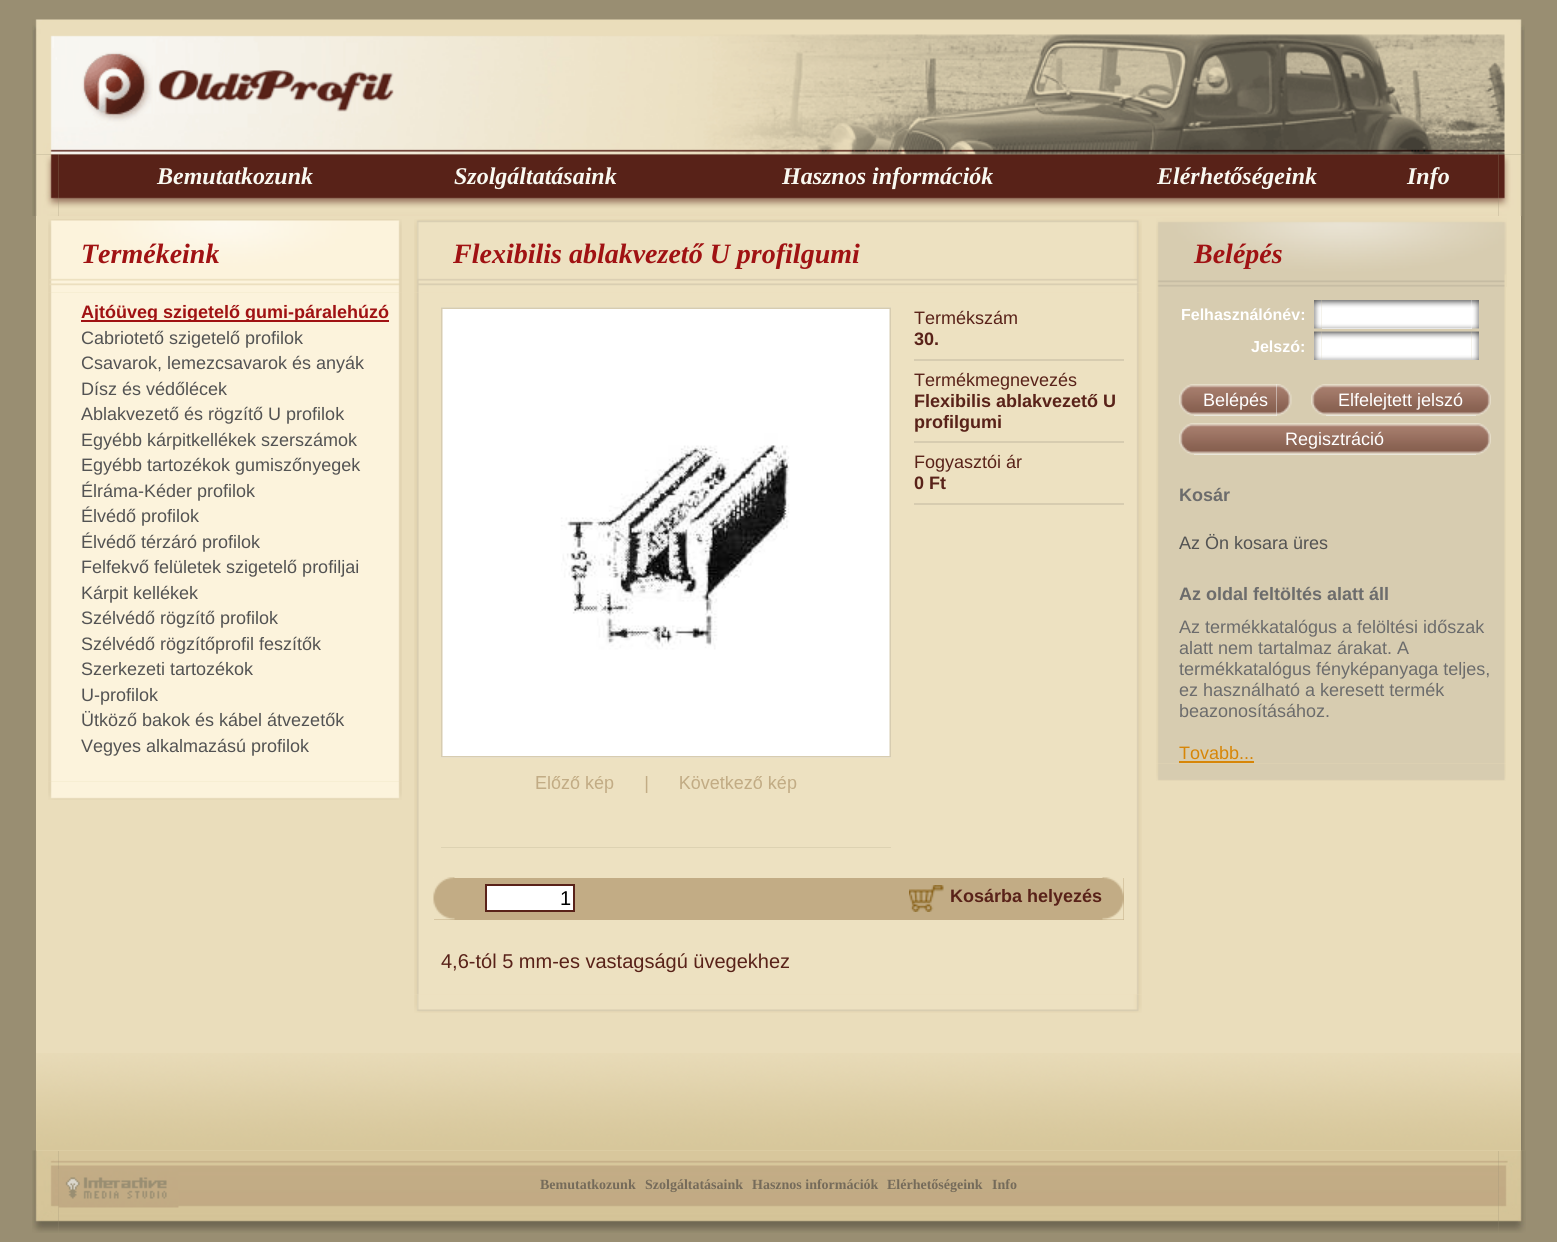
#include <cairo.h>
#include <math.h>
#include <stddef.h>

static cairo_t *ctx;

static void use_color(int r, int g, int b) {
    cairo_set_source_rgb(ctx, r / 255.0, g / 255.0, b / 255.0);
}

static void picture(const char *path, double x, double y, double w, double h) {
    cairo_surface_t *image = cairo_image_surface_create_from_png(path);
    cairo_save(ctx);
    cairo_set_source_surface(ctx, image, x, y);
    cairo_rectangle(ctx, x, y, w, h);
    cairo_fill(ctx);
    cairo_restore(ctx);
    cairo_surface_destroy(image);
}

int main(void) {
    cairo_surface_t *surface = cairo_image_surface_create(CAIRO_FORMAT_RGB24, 1557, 1242);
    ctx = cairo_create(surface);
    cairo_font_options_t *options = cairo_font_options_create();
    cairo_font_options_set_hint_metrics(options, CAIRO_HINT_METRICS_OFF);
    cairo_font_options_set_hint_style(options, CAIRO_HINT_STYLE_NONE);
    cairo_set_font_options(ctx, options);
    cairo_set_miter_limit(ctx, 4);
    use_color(153, 142, 114);
    cairo_paint(ctx);
    picture("img1.png", 32, 19, 1493, 136);
    picture("img2.png", 32, 154, 27, 62);
    picture("img3.png", 58, 154, 1441, 62);
    cairo_select_font_face(ctx, "Liberation Serif", CAIRO_FONT_SLANT_ITALIC, CAIRO_FONT_WEIGHT_BOLD);
    cairo_set_font_size(ctx, 24);
    use_color(249, 249, 241);
    cairo_move_to(ctx, 157, 184);
    cairo_show_text(ctx, "Bemutatkozunk");
    cairo_move_to(ctx, 454, 184);
    cairo_show_text(ctx, "Szolgáltatásaink");
    cairo_move_to(ctx, 782, 184);
    cairo_show_text(ctx, "Hasznos információk");
    cairo_move_to(ctx, 1157, 184);
    cairo_show_text(ctx, "Elérhetőségeink");
    cairo_move_to(ctx, 1407, 184);
    cairo_show_text(ctx, "Info");
    picture("img4.png", 1498, 154, 27, 62);
    use_color(234, 221, 187);
    cairo_rectangle(ctx, 36, 216, 1485, 935);
    cairo_fill(ctx);
    picture("img5.png", 36, 1053, 1485, 98);
    picture("img6.png", 48, 219, 354, 74);
    cairo_set_font_size(ctx, 28);
    use_color(160, 18, 19);
    cairo_move_to(ctx, 81, 263);
    cairo_show_text(ctx, "Termékeink");
    picture("img7.png", 48, 292, 354, 490);
    cairo_rectangle(ctx, 81, 320, 308, 2);
    cairo_fill(ctx);
    cairo_select_font_face(ctx, "Liberation Sans", CAIRO_FONT_SLANT_NORMAL, CAIRO_FONT_WEIGHT_BOLD);
    cairo_set_font_size(ctx, 18);
    cairo_move_to(ctx, 81, 318);
    cairo_show_text(ctx, "Ajtóüveg szigetelő gumi-páralehúzó");
    cairo_select_font_face(ctx, "Liberation Sans", CAIRO_FONT_SLANT_NORMAL, CAIRO_FONT_WEIGHT_NORMAL);
    use_color(83, 83, 83);
    cairo_move_to(ctx, 81, 344);
    cairo_show_text(ctx, "Cabriotető szigetelő profilok");
    cairo_move_to(ctx, 81, 369);
    cairo_show_text(ctx, "Csavarok, lemezcsavarok és anyák");
    cairo_move_to(ctx, 81, 395);
    cairo_show_text(ctx, "Dísz és védőlécek");
    cairo_move_to(ctx, 81, 420);
    cairo_show_text(ctx, "Ablakvezető és rögzítő U profilok");
    cairo_move_to(ctx, 81, 446);
    cairo_show_text(ctx, "Egyébb kárpitkellékek szerszámok");
    cairo_move_to(ctx, 81, 471);
    cairo_show_text(ctx, "Egyébb tartozékok gumiszőnyegek");
    cairo_move_to(ctx, 81, 497);
    cairo_show_text(ctx, "Élráma-Kéder profilok");
    cairo_move_to(ctx, 81, 522);
    cairo_show_text(ctx, "Élvédő profilok");
    cairo_move_to(ctx, 81, 548);
    cairo_show_text(ctx, "Élvédő térzáró profilok");
    cairo_move_to(ctx, 81, 573);
    cairo_show_text(ctx, "Felfekvő felületek szigetelő profiljai");
    cairo_move_to(ctx, 81, 599);
    cairo_show_text(ctx, "Kárpit kellékek");
    cairo_move_to(ctx, 81, 624);
    cairo_show_text(ctx, "Szélvédő rögzítő profilok");
    cairo_move_to(ctx, 81, 650);
    cairo_show_text(ctx, "Szélvédő rögzítőprofil feszítők");
    cairo_move_to(ctx, 81, 675);
    cairo_show_text(ctx, "Szerkezeti tartozékok");
    cairo_move_to(ctx, 81, 701);
    cairo_show_text(ctx, "U-profilok");
    cairo_move_to(ctx, 81, 726);
    cairo_show_text(ctx, "Ütköző bakok és kábel átvezetők");
    cairo_move_to(ctx, 81, 752);
    cairo_show_text(ctx, "Vegyes alkalmazású profilok");
    picture("img8.png", 48, 781, 354, 19);
    picture("img9.png", 414, 219, 728, 74);
    cairo_select_font_face(ctx, "Liberation Serif", CAIRO_FONT_SLANT_ITALIC, CAIRO_FONT_WEIGHT_BOLD);
    cairo_set_font_size(ctx, 28);
    use_color(160, 18, 19);
    cairo_move_to(ctx, 453, 263);
    cairo_show_text(ctx, "Flexibilis ablakvezető U profilgumi");
    picture("img10.png", 414, 292, 728, 703);
    picture("img11.png", 441, 307, 450, 541);
    cairo_select_font_face(ctx, "Liberation Sans", CAIRO_FONT_SLANT_NORMAL, CAIRO_FONT_WEIGHT_NORMAL);
    cairo_set_font_size(ctx, 18);
    use_color(89, 34, 25);
    cairo_move_to(ctx, 914, 324);
    cairo_show_text(ctx, "Termékszám");
    cairo_select_font_face(ctx, "Liberation Sans", CAIRO_FONT_SLANT_NORMAL, CAIRO_FONT_WEIGHT_BOLD);
    cairo_move_to(ctx, 914, 345);
    cairo_show_text(ctx, "30.");
    use_color(215, 204, 176);
    cairo_rectangle(ctx, 914, 359, 210, 2);
    cairo_fill(ctx);
    cairo_select_font_face(ctx, "Liberation Sans", CAIRO_FONT_SLANT_NORMAL, CAIRO_FONT_WEIGHT_NORMAL);
    use_color(89, 34, 25);
    cairo_move_to(ctx, 914, 386);
    cairo_show_text(ctx, "Termékmegnevezés");
    cairo_select_font_face(ctx, "Liberation Sans", CAIRO_FONT_SLANT_NORMAL, CAIRO_FONT_WEIGHT_BOLD);
    cairo_move_to(ctx, 914, 407);
    cairo_show_text(ctx, "Flexibilis ablakvezető U");
    cairo_move_to(ctx, 914, 428);
    cairo_show_text(ctx, "profilgumi");
    use_color(215, 204, 176);
    cairo_rectangle(ctx, 914, 441, 210, 2);
    cairo_fill(ctx);
    cairo_select_font_face(ctx, "Liberation Sans", CAIRO_FONT_SLANT_NORMAL, CAIRO_FONT_WEIGHT_NORMAL);
    use_color(89, 34, 25);
    cairo_move_to(ctx, 914, 468);
    cairo_show_text(ctx, "Fogyasztói ár");
    cairo_select_font_face(ctx, "Liberation Sans", CAIRO_FONT_SLANT_NORMAL, CAIRO_FONT_WEIGHT_BOLD);
    cairo_move_to(ctx, 914, 489);
    cairo_show_text(ctx, "0 Ft");
    use_color(215, 204, 176);
    cairo_rectangle(ctx, 914, 503, 210, 2);
    cairo_fill(ctx);
    use_color(194, 172, 133);
    cairo_rectangle(ctx, 434, 878, 690, 42);
    cairo_fill(ctx);
    picture("img12.png", 433, 877, 22, 43);
    use_color(255, 255, 255);
    cairo_rectangle(ctx, 486, 885, 88, 26);
    cairo_fill_preserve(ctx);
    use_color(89, 34, 25);
    cairo_stroke(ctx);
    cairo_select_font_face(ctx, "Liberation Sans", CAIRO_FONT_SLANT_NORMAL, CAIRO_FONT_WEIGHT_NORMAL);
    cairo_set_font_size(ctx, 20);
    use_color(0, 0, 0);
    cairo_move_to(ctx, 560, 905);
    cairo_show_text(ctx, "1");
    picture("img13.png", 909, 885, 35, 27);
    cairo_select_font_face(ctx, "Liberation Sans", CAIRO_FONT_SLANT_NORMAL, CAIRO_FONT_WEIGHT_BOLD);
    cairo_set_font_size(ctx, 18);
    use_color(89, 34, 25);
    cairo_move_to(ctx, 950, 902);
    cairo_show_text(ctx, "Kosárba helyezés");
    picture("img14.png", 1102, 877, 22, 43);
    cairo_select_font_face(ctx, "Liberation Sans", CAIRO_FONT_SLANT_NORMAL, CAIRO_FONT_WEIGHT_NORMAL);
    cairo_set_font_size(ctx, 20);
    cairo_move_to(ctx, 441, 968);
    cairo_show_text(ctx, "4,6-tól 5 mm-es vastagságú üvegekhez");
    picture("img15.png", 414, 994, 728, 19);
    picture("img16.png", 1156, 287, 350, 477);
    picture("img17.png", 1156, 216, 351, 71);
    cairo_select_font_face(ctx, "Liberation Serif", CAIRO_FONT_SLANT_ITALIC, CAIRO_FONT_WEIGHT_BOLD);
    cairo_set_font_size(ctx, 28);
    use_color(160, 18, 19);
    cairo_move_to(ctx, 1194, 263);
    cairo_show_text(ctx, "Belépés");
    cairo_select_font_face(ctx, "Liberation Sans", CAIRO_FONT_SLANT_NORMAL, CAIRO_FONT_WEIGHT_BOLD);
    cairo_set_font_size(ctx, 16);
    use_color(255, 255, 255);
    cairo_move_to(ctx, 1181, 320);
    cairo_show_text(ctx, "Felhasználónév:");
    picture("img18.png", 1314, 300, 8, 29);
    cairo_rectangle(ctx, 1322, 300, 150, 29);
    cairo_fill(ctx);
    picture("img19.png", 1321, 300, 151, 29);
    picture("img20.png", 1471, 300, 8, 29);
    cairo_move_to(ctx, 1251, 352);
    cairo_show_text(ctx, "Jelszó:");
    picture("img21.png", 1314, 331, 8, 29);
    picture("img22.png", 1321, 331, 151, 29);
    picture("img23.png", 1471, 331, 8, 29);
    picture("img24.png", 1179, 384, 15, 32);
    use_color(239, 239, 239);
    cairo_rectangle(ctx, 1194, 384, 83, 32);
    cairo_fill(ctx);
    picture("img25.png", 1194, 384, 83, 32);
    cairo_select_font_face(ctx, "Liberation Sans", CAIRO_FONT_SLANT_NORMAL, CAIRO_FONT_WEIGHT_NORMAL);
    cairo_set_font_size(ctx, 18);
    use_color(255, 255, 255);
    cairo_move_to(ctx, 1203, 406);
    cairo_show_text(ctx, "Belépés");
    picture("img26.png", 1277, 384, 15, 32);
    picture("img27.png", 1311, 384, 15, 32);
    use_color(239, 239, 239);
    cairo_rectangle(ctx, 1326, 415, 150, 1);
    cairo_fill(ctx);
    picture("img28.png", 1326, 384, 150, 32);
    use_color(255, 255, 255);
    cairo_move_to(ctx, 1338, 406);
    cairo_show_text(ctx, "Elfelejtett jelszó");
    picture("img29.png", 1476, 384, 15, 32);
    picture("img24.png", 1179, 423, 15, 32);
    use_color(239, 239, 239);
    cairo_rectangle(ctx, 1194, 454, 282, 1);
    cairo_fill(ctx);
    picture("img30.png", 1194, 423, 282, 32);
    use_color(255, 255, 255);
    cairo_move_to(ctx, 1285, 445);
    cairo_show_text(ctx, "Regisztráció");
    picture("img29.png", 1476, 423, 15, 32);
    cairo_select_font_face(ctx, "Liberation Sans", CAIRO_FONT_SLANT_NORMAL, CAIRO_FONT_WEIGHT_BOLD);
    use_color(108, 108, 108);
    cairo_move_to(ctx, 1179, 501);
    cairo_show_text(ctx, "Kosár");
    cairo_select_font_face(ctx, "Liberation Sans", CAIRO_FONT_SLANT_NORMAL, CAIRO_FONT_WEIGHT_NORMAL);
    use_color(83, 83, 83);
    cairo_move_to(ctx, 1179, 549);
    cairo_show_text(ctx, "Az Ön kosara üres");
    cairo_select_font_face(ctx, "Liberation Sans", CAIRO_FONT_SLANT_NORMAL, CAIRO_FONT_WEIGHT_BOLD);
    use_color(108, 108, 108);
    cairo_move_to(ctx, 1179, 600);
    cairo_show_text(ctx, "Az oldal feltöltés alatt áll");
    cairo_select_font_face(ctx, "Liberation Sans", CAIRO_FONT_SLANT_NORMAL, CAIRO_FONT_WEIGHT_NORMAL);
    cairo_move_to(ctx, 1179, 633);
    cairo_show_text(ctx, "Az termékkatalógus a felöltési időszak");
    cairo_move_to(ctx, 1179, 654);
    cairo_show_text(ctx, "alatt nem tartalmaz árakat. A");
    cairo_move_to(ctx, 1179, 675);
    cairo_show_text(ctx, "termékkatalógus fényképanyaga teljes,");
    cairo_move_to(ctx, 1179, 696);
    cairo_show_text(ctx, "ez használható a keresett termék");
    cairo_move_to(ctx, 1179, 717);
    cairo_show_text(ctx, "beazonosításához.");
    use_color(215, 134, 8);
    cairo_move_to(ctx, 1179, 759);
    cairo_show_text(ctx, "Tovabb...");
    cairo_rectangle(ctx, 1179, 761, 75, 2);
    cairo_fill(ctx);
    picture("img31.png", 1156, 763, 350, 18);
    picture("img32.png", 1521, 216, 4, 935);
    picture("img33.png", 32, 1150, 27, 83);
    picture("img34.png", 58, 1150, 1441, 83);
    picture("img35.png", 58, 1169, 121, 39);
    cairo_select_font_face(ctx, "Liberation Serif", CAIRO_FONT_SLANT_NORMAL, CAIRO_FONT_WEIGHT_BOLD);
    cairo_set_font_size(ctx, 14);
    use_color(117, 107, 90);
    cairo_move_to(ctx, 540, 1189);
    cairo_show_text(ctx, "Bemutatkozunk");
    cairo_move_to(ctx, 645, 1189);
    cairo_show_text(ctx, "Szolgáltatásaink");
    cairo_move_to(ctx, 752, 1189);
    cairo_show_text(ctx, "Hasznos információk");
    cairo_move_to(ctx, 887, 1189);
    cairo_show_text(ctx, "Elérhetőségeink");
    cairo_move_to(ctx, 992, 1189);
    cairo_show_text(ctx, "Info");
    picture("img36.png", 1498, 1150, 28, 83);
    cairo_surface_write_to_png(surface, "result.png");
    cairo_font_options_destroy(options);
    cairo_destroy(ctx);
    cairo_surface_destroy(surface);
    return 0;
}
